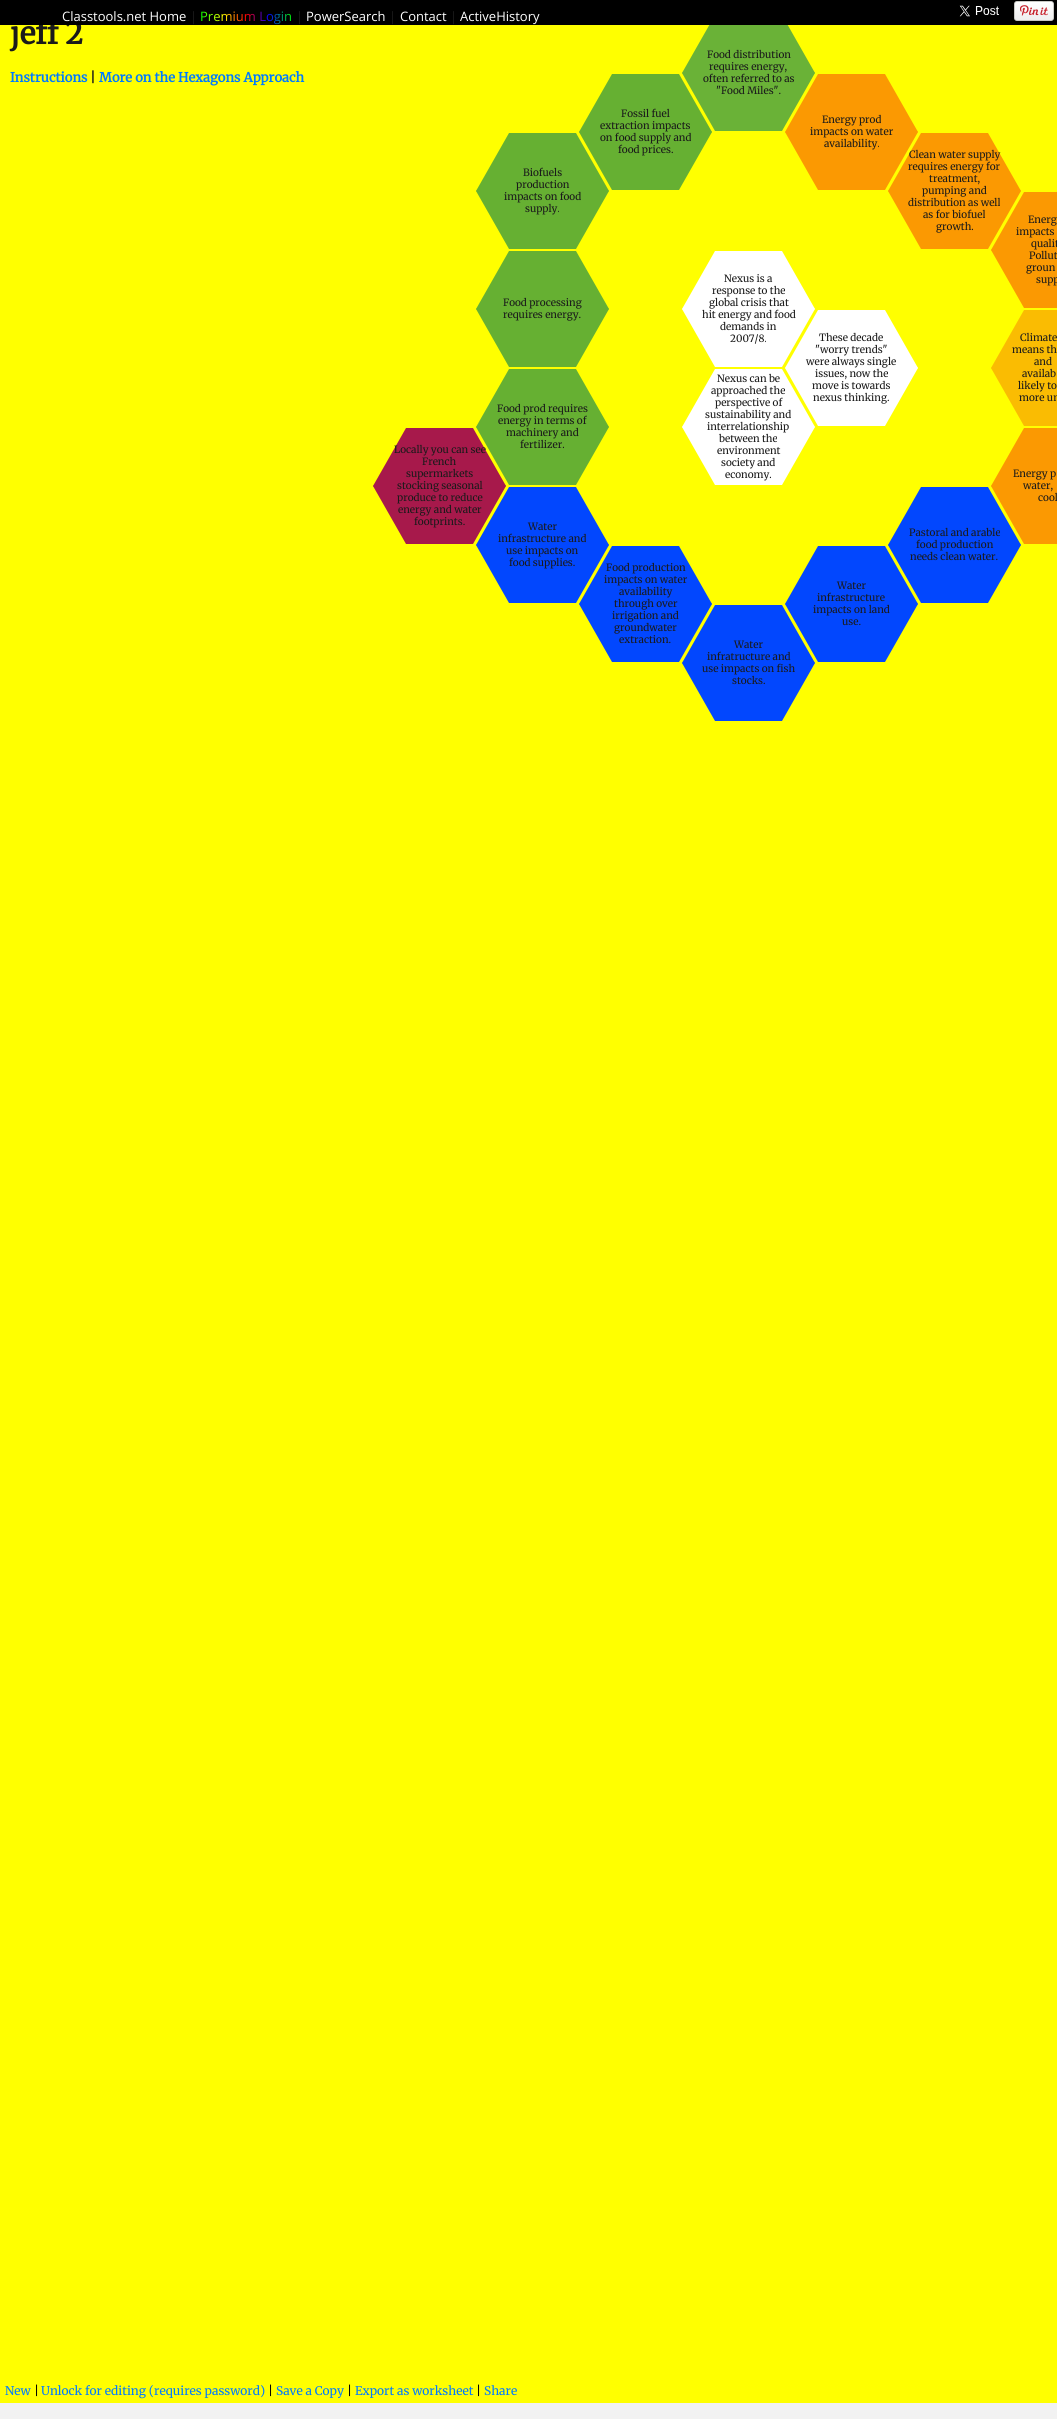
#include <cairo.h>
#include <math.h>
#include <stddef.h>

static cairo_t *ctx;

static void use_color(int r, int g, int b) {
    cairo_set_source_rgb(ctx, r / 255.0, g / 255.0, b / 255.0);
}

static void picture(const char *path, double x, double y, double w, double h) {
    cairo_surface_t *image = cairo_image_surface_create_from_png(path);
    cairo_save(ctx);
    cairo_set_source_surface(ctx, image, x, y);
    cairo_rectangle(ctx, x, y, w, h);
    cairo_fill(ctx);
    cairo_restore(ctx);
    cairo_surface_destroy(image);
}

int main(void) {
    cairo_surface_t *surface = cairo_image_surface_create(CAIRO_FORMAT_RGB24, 1057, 2419);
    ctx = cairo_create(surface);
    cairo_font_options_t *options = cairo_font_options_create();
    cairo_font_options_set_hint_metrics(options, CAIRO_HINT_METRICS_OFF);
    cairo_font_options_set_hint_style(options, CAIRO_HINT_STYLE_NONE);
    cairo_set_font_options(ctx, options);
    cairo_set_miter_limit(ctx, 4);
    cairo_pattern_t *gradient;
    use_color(242, 242, 242);
    cairo_paint(ctx);
    use_color(255, 255, 0);
    cairo_rectangle(ctx, 0, 25, 1057, 2378);
    cairo_fill(ctx);
    cairo_select_font_face(ctx, "Merriweather", CAIRO_FONT_SLANT_NORMAL, CAIRO_FONT_WEIGHT_BOLD);
    cairo_set_font_size(ctx, 30);
    use_color(26, 26, 26);
    cairo_move_to(ctx, 10, 44);
    cairo_show_text(ctx, "jeff 2");
    use_color(106, 178, 55);
    cairo_rectangle(ctx, 715, 25, 67, 106);
    cairo_fill(ctx);
    cairo_new_path(ctx);
    cairo_move_to(ctx, 682, 73);
    cairo_line_to(ctx, 715, 15);
    cairo_line_to(ctx, 815, 73);
    cairo_line_to(ctx, 782, 131);
    cairo_close_path(ctx);
    cairo_fill(ctx);
    cairo_new_path(ctx);
    cairo_move_to(ctx, 782, 15);
    cairo_line_to(ctx, 815, 73);
    cairo_line_to(ctx, 715, 131);
    cairo_line_to(ctx, 682, 73);
    cairo_close_path(ctx);
    cairo_fill(ctx);
    use_color(0, 0, 0);
    cairo_rectangle(ctx, 0, 0, 1057, 25);
    cairo_fill(ctx);
    cairo_select_font_face(ctx, "Open Sans", CAIRO_FONT_SLANT_NORMAL, CAIRO_FONT_WEIGHT_NORMAL);
    cairo_set_font_size(ctx, 13);
    use_color(255, 255, 255);
    cairo_move_to(ctx, 62, 21);
    cairo_show_text(ctx, "Classtools.net Home");
    use_color(26, 26, 26);
    cairo_move_to(ctx, 190, 21);
    cairo_show_text(ctx, "|");
    gradient = cairo_pattern_create_linear(200, 16, 292, 16);
    cairo_pattern_add_color_stop_rgba(gradient, 0, 0, 1, 0, 1);
    cairo_pattern_add_color_stop_rgba(gradient, 0.25, 1, 1, 0, 1);
    cairo_pattern_add_color_stop_rgba(gradient, 0.5, 1, 0, 0, 1);
    cairo_pattern_add_color_stop_rgba(gradient, 0.75, 0, 0, 1, 1);
    cairo_pattern_add_color_stop_rgba(gradient, 1, 0, 1, 0, 1);
    cairo_set_source(ctx, gradient);
    cairo_pattern_destroy(gradient);
    cairo_move_to(ctx, 200, 21);
    cairo_show_text(ctx, "Premium Login");
    use_color(26, 26, 26);
    cairo_move_to(ctx, 296, 21);
    cairo_show_text(ctx, "|");
    use_color(255, 255, 255);
    cairo_move_to(ctx, 306, 21);
    cairo_show_text(ctx, "PowerSearch");
    use_color(26, 26, 26);
    cairo_move_to(ctx, 389, 21);
    cairo_show_text(ctx, "|");
    use_color(255, 255, 255);
    cairo_move_to(ctx, 400, 21);
    cairo_show_text(ctx, "Contact");
    use_color(26, 26, 26);
    cairo_move_to(ctx, 450, 21);
    cairo_show_text(ctx, "|");
    use_color(255, 255, 255);
    cairo_move_to(ctx, 460, 21);
    cairo_show_text(ctx, "ActiveHistory");
    picture("img1.png", 959, 5, 40, 12);
    picture("img2.png", 1014, 1, 40, 20);
    cairo_select_font_face(ctx, "Merriweather", CAIRO_FONT_SLANT_NORMAL, CAIRO_FONT_WEIGHT_BOLD);
    use_color(0, 123, 255);
    cairo_move_to(ctx, 10, 82);
    cairo_show_text(ctx, "Instructions");
    use_color(26, 26, 26);
    cairo_move_to(ctx, 90, 82);
    cairo_show_text(ctx, "|");
    use_color(0, 123, 255);
    cairo_move_to(ctx, 99, 82);
    cairo_show_text(ctx, "More on the Hexagons Approach");
    cairo_select_font_face(ctx, "Merriweather Light", CAIRO_FONT_SLANT_NORMAL, CAIRO_FONT_WEIGHT_NORMAL);
    cairo_set_font_size(ctx, 10);
    use_color(26, 26, 26);
    cairo_move_to(ctx, 707, 58);
    cairo_show_text(ctx, "Food distribution");
    cairo_move_to(ctx, 709, 70);
    cairo_show_text(ctx, "requires energy,");
    cairo_move_to(ctx, 703, 82);
    cairo_show_text(ctx, "often referred to as");
    cairo_move_to(ctx, 716, 94);
    cairo_show_text(ctx, "\"Food Miles\".");
    use_color(102, 176, 50);
    cairo_rectangle(ctx, 612, 74, 67, 116);
    cairo_fill(ctx);
    cairo_rectangle(ctx, 509, 133, 67, 116);
    cairo_fill(ctx);
    cairo_new_path(ctx);
    cairo_move_to(ctx, 476, 191);
    cairo_line_to(ctx, 509, 133);
    cairo_line_to(ctx, 609, 191);
    cairo_line_to(ctx, 576, 249);
    cairo_close_path(ctx);
    cairo_fill(ctx);
    cairo_new_path(ctx);
    cairo_move_to(ctx, 576, 133);
    cairo_line_to(ctx, 609, 191);
    cairo_line_to(ctx, 509, 249);
    cairo_line_to(ctx, 476, 191);
    cairo_close_path(ctx);
    cairo_fill(ctx);
    cairo_new_path(ctx);
    cairo_move_to(ctx, 579, 132);
    cairo_line_to(ctx, 612, 74);
    cairo_line_to(ctx, 712, 132);
    cairo_line_to(ctx, 679, 190);
    cairo_close_path(ctx);
    cairo_fill(ctx);
    cairo_new_path(ctx);
    cairo_move_to(ctx, 679, 74);
    cairo_line_to(ctx, 712, 132);
    cairo_line_to(ctx, 612, 190);
    cairo_line_to(ctx, 579, 132);
    cairo_close_path(ctx);
    cairo_fill(ctx);
    use_color(26, 26, 26);
    cairo_move_to(ctx, 621, 117);
    cairo_show_text(ctx, "Fossil fuel");
    cairo_move_to(ctx, 600, 129);
    cairo_show_text(ctx, "extraction impacts");
    cairo_move_to(ctx, 600, 141);
    cairo_show_text(ctx, "on food supply and");
    cairo_move_to(ctx, 618, 153);
    cairo_show_text(ctx, "food prices.");
    use_color(251, 153, 2);
    cairo_rectangle(ctx, 818, 74, 67, 116);
    cairo_fill(ctx);
    cairo_new_path(ctx);
    cairo_move_to(ctx, 785, 132);
    cairo_line_to(ctx, 818, 74);
    cairo_line_to(ctx, 918, 132);
    cairo_line_to(ctx, 885, 190);
    cairo_close_path(ctx);
    cairo_fill(ctx);
    cairo_new_path(ctx);
    cairo_move_to(ctx, 885, 74);
    cairo_line_to(ctx, 918, 132);
    cairo_line_to(ctx, 818, 190);
    cairo_line_to(ctx, 785, 132);
    cairo_close_path(ctx);
    cairo_fill(ctx);
    use_color(26, 26, 26);
    cairo_move_to(ctx, 822, 123);
    cairo_show_text(ctx, "Energy prod");
    cairo_move_to(ctx, 810, 135);
    cairo_show_text(ctx, "impacts on water");
    cairo_move_to(ctx, 824, 147);
    cairo_show_text(ctx, "availability.");
    cairo_move_to(ctx, 523, 176);
    cairo_show_text(ctx, "Biofuels");
    cairo_move_to(ctx, 516, 188);
    cairo_show_text(ctx, "production");
    cairo_move_to(ctx, 504, 200);
    cairo_show_text(ctx, "impacts on food");
    cairo_move_to(ctx, 525, 212);
    cairo_show_text(ctx, "supply.");
    use_color(251, 153, 2);
    cairo_rectangle(ctx, 921, 133, 67, 116);
    cairo_fill(ctx);
    cairo_rectangle(ctx, 1024, 192, 33, 116);
    cairo_fill(ctx);
    cairo_new_path(ctx);
    cairo_move_to(ctx, 991, 250);
    cairo_line_to(ctx, 1024, 192);
    cairo_line_to(ctx, 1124, 250);
    cairo_line_to(ctx, 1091, 308);
    cairo_close_path(ctx);
    cairo_fill(ctx);
    cairo_new_path(ctx);
    cairo_move_to(ctx, 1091, 192);
    cairo_line_to(ctx, 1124, 250);
    cairo_line_to(ctx, 1024, 308);
    cairo_line_to(ctx, 991, 250);
    cairo_close_path(ctx);
    cairo_fill(ctx);
    use_color(26, 26, 26);
    cairo_move_to(ctx, 1016, 235);
    cairo_show_text(ctx, "impacts");
    use_color(251, 153, 2);
    cairo_new_path(ctx);
    cairo_move_to(ctx, 888, 191);
    cairo_line_to(ctx, 921, 133);
    cairo_line_to(ctx, 1021, 191);
    cairo_line_to(ctx, 988, 249);
    cairo_close_path(ctx);
    cairo_fill(ctx);
    cairo_new_path(ctx);
    cairo_move_to(ctx, 988, 133);
    cairo_line_to(ctx, 1021, 191);
    cairo_line_to(ctx, 921, 249);
    cairo_line_to(ctx, 888, 191);
    cairo_close_path(ctx);
    cairo_fill(ctx);
    use_color(26, 26, 26);
    cairo_move_to(ctx, 909, 158);
    cairo_show_text(ctx, "Clean water supply");
    cairo_move_to(ctx, 908, 170);
    cairo_show_text(ctx, "requires energy for");
    cairo_move_to(ctx, 929, 182);
    cairo_show_text(ctx, "treatment,");
    cairo_move_to(ctx, 922, 194);
    cairo_show_text(ctx, "pumping and");
    cairo_move_to(ctx, 908, 206);
    cairo_show_text(ctx, "distribution as well");
    cairo_move_to(ctx, 923, 218);
    cairo_show_text(ctx, "as for biofuel");
    cairo_move_to(ctx, 936, 230);
    cairo_show_text(ctx, "growth.");
    cairo_move_to(ctx, 1028, 223);
    cairo_show_text(ctx, "Energ");
    cairo_move_to(ctx, 1031, 247);
    cairo_show_text(ctx, "qualit");
    cairo_move_to(ctx, 1029, 259);
    cairo_show_text(ctx, "Pollut");
    cairo_move_to(ctx, 1026, 271);
    cairo_show_text(ctx, "groun");
    cairo_move_to(ctx, 1036, 283);
    cairo_show_text(ctx, "supp");
    use_color(102, 176, 50);
    cairo_rectangle(ctx, 509, 251, 67, 116);
    cairo_fill(ctx);
    cairo_new_path(ctx);
    cairo_move_to(ctx, 476, 309);
    cairo_line_to(ctx, 509, 251);
    cairo_line_to(ctx, 609, 309);
    cairo_line_to(ctx, 576, 367);
    cairo_close_path(ctx);
    cairo_fill(ctx);
    cairo_new_path(ctx);
    cairo_move_to(ctx, 576, 251);
    cairo_line_to(ctx, 609, 309);
    cairo_line_to(ctx, 509, 367);
    cairo_line_to(ctx, 476, 309);
    cairo_close_path(ctx);
    cairo_fill(ctx);
    use_color(26, 26, 26);
    cairo_move_to(ctx, 503, 306);
    cairo_show_text(ctx, "Food processing");
    cairo_move_to(ctx, 503, 318);
    cairo_show_text(ctx, "requires energy.");
    use_color(255, 255, 255);
    cairo_rectangle(ctx, 715, 251, 67, 116);
    cairo_fill(ctx);
    cairo_rectangle(ctx, 818, 310, 67, 116);
    cairo_fill(ctx);
    cairo_new_path(ctx);
    cairo_move_to(ctx, 785, 368);
    cairo_line_to(ctx, 818, 310);
    cairo_line_to(ctx, 918, 368);
    cairo_line_to(ctx, 885, 426);
    cairo_close_path(ctx);
    cairo_fill(ctx);
    cairo_new_path(ctx);
    cairo_move_to(ctx, 885, 310);
    cairo_line_to(ctx, 918, 368);
    cairo_line_to(ctx, 818, 426);
    cairo_line_to(ctx, 785, 368);
    cairo_close_path(ctx);
    cairo_fill(ctx);
    use_color(26, 26, 26);
    cairo_move_to(ctx, 806, 365);
    cairo_show_text(ctx, "were always single");
    use_color(255, 255, 255);
    cairo_new_path(ctx);
    cairo_move_to(ctx, 682, 309);
    cairo_line_to(ctx, 715, 251);
    cairo_line_to(ctx, 815, 309);
    cairo_line_to(ctx, 782, 367);
    cairo_close_path(ctx);
    cairo_fill(ctx);
    cairo_new_path(ctx);
    cairo_move_to(ctx, 782, 251);
    cairo_line_to(ctx, 815, 309);
    cairo_line_to(ctx, 715, 367);
    cairo_line_to(ctx, 682, 309);
    cairo_close_path(ctx);
    cairo_fill(ctx);
    use_color(26, 26, 26);
    cairo_move_to(ctx, 724, 282);
    cairo_show_text(ctx, "Nexus is a");
    cairo_move_to(ctx, 712, 294);
    cairo_show_text(ctx, "response to the");
    cairo_move_to(ctx, 709, 306);
    cairo_show_text(ctx, "global crisis that");
    cairo_move_to(ctx, 702, 318);
    cairo_show_text(ctx, "hit energy and food");
    cairo_move_to(ctx, 720, 330);
    cairo_show_text(ctx, "demands in");
    cairo_move_to(ctx, 730, 342);
    cairo_show_text(ctx, "2007/8.");
    use_color(102, 176, 50);
    cairo_rectangle(ctx, 509, 369, 67, 116);
    cairo_fill(ctx);
    cairo_new_path(ctx);
    cairo_move_to(ctx, 476, 427);
    cairo_line_to(ctx, 509, 369);
    cairo_line_to(ctx, 609, 427);
    cairo_line_to(ctx, 576, 485);
    cairo_close_path(ctx);
    cairo_fill(ctx);
    cairo_new_path(ctx);
    cairo_move_to(ctx, 576, 369);
    cairo_line_to(ctx, 609, 427);
    cairo_line_to(ctx, 509, 485);
    cairo_line_to(ctx, 476, 427);
    cairo_close_path(ctx);
    cairo_fill(ctx);
    use_color(26, 26, 26);
    cairo_move_to(ctx, 497, 412);
    cairo_show_text(ctx, "Food prod requires");
    cairo_move_to(ctx, 498, 424);
    cairo_show_text(ctx, "energy in terms of");
    cairo_move_to(ctx, 506, 436);
    cairo_show_text(ctx, "machinery and");
    cairo_move_to(ctx, 520, 448);
    cairo_show_text(ctx, "fertilizer.");
    use_color(255, 255, 255);
    cairo_rectangle(ctx, 715, 369, 67, 116);
    cairo_fill(ctx);
    use_color(26, 26, 26);
    cairo_move_to(ctx, 812, 389);
    cairo_show_text(ctx, "move is towards");
    cairo_move_to(ctx, 813, 401);
    cairo_show_text(ctx, "nexus thinking.");
    use_color(255, 255, 255);
    cairo_new_path(ctx);
    cairo_move_to(ctx, 682, 427);
    cairo_line_to(ctx, 715, 369);
    cairo_line_to(ctx, 815, 427);
    cairo_line_to(ctx, 782, 485);
    cairo_close_path(ctx);
    cairo_fill(ctx);
    cairo_new_path(ctx);
    cairo_move_to(ctx, 782, 369);
    cairo_line_to(ctx, 815, 427);
    cairo_line_to(ctx, 715, 485);
    cairo_line_to(ctx, 682, 427);
    cairo_close_path(ctx);
    cairo_fill(ctx);
    use_color(26, 26, 26);
    cairo_move_to(ctx, 717, 382);
    cairo_show_text(ctx, "Nexus can be");
    cairo_move_to(ctx, 711, 394);
    cairo_show_text(ctx, "approached the");
    cairo_move_to(ctx, 715, 406);
    cairo_show_text(ctx, "perspective of");
    cairo_move_to(ctx, 705, 418);
    cairo_show_text(ctx, "sustainability and");
    cairo_move_to(ctx, 707, 430);
    cairo_show_text(ctx, "interrelationship");
    cairo_move_to(ctx, 719, 442);
    cairo_show_text(ctx, "between the");
    cairo_move_to(ctx, 717, 454);
    cairo_show_text(ctx, "environment");
    cairo_move_to(ctx, 721, 466);
    cairo_show_text(ctx, "society and");
    cairo_move_to(ctx, 725, 478);
    cairo_show_text(ctx, "economy.");
    cairo_move_to(ctx, 819, 341);
    cairo_show_text(ctx, "These decade");
    cairo_move_to(ctx, 815, 353);
    cairo_show_text(ctx, "\"worry trends\"");
    cairo_move_to(ctx, 815, 377);
    cairo_show_text(ctx, "issues, now the");
    use_color(250, 188, 2);
    cairo_rectangle(ctx, 1024, 310, 33, 116);
    cairo_fill(ctx);
    cairo_new_path(ctx);
    cairo_move_to(ctx, 991, 368);
    cairo_line_to(ctx, 1024, 310);
    cairo_line_to(ctx, 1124, 368);
    cairo_line_to(ctx, 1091, 426);
    cairo_close_path(ctx);
    cairo_fill(ctx);
    cairo_new_path(ctx);
    cairo_move_to(ctx, 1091, 310);
    cairo_line_to(ctx, 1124, 368);
    cairo_line_to(ctx, 1024, 426);
    cairo_line_to(ctx, 991, 368);
    cairo_close_path(ctx);
    cairo_fill(ctx);
    use_color(26, 26, 26);
    cairo_move_to(ctx, 1020, 341);
    cairo_show_text(ctx, "Climate");
    cairo_move_to(ctx, 1012, 353);
    cairo_show_text(ctx, "means th");
    cairo_move_to(ctx, 1034, 365);
    cairo_show_text(ctx, "and");
    cairo_move_to(ctx, 1022, 377);
    cairo_show_text(ctx, "availab");
    cairo_move_to(ctx, 1018, 389);
    cairo_show_text(ctx, "likely to");
    cairo_move_to(ctx, 1019, 401);
    cairo_show_text(ctx, "more un");
    use_color(167, 25, 75);
    cairo_rectangle(ctx, 406, 428, 67, 116);
    cairo_fill(ctx);
    use_color(2, 71, 254);
    cairo_rectangle(ctx, 509, 487, 67, 116);
    cairo_fill(ctx);
    cairo_new_path(ctx);
    cairo_move_to(ctx, 476, 545);
    cairo_line_to(ctx, 509, 487);
    cairo_line_to(ctx, 609, 545);
    cairo_line_to(ctx, 576, 603);
    cairo_close_path(ctx);
    cairo_fill(ctx);
    cairo_new_path(ctx);
    cairo_move_to(ctx, 576, 487);
    cairo_line_to(ctx, 609, 545);
    cairo_line_to(ctx, 509, 603);
    cairo_line_to(ctx, 476, 545);
    cairo_close_path(ctx);
    cairo_fill(ctx);
    use_color(26, 26, 26);
    cairo_move_to(ctx, 498, 542);
    cairo_show_text(ctx, "infrastructure and");
    use_color(167, 25, 75);
    cairo_new_path(ctx);
    cairo_move_to(ctx, 373, 486);
    cairo_line_to(ctx, 406, 428);
    cairo_line_to(ctx, 506, 486);
    cairo_line_to(ctx, 473, 544);
    cairo_close_path(ctx);
    cairo_fill(ctx);
    cairo_new_path(ctx);
    cairo_move_to(ctx, 473, 428);
    cairo_line_to(ctx, 506, 486);
    cairo_line_to(ctx, 406, 544);
    cairo_line_to(ctx, 373, 486);
    cairo_close_path(ctx);
    cairo_fill(ctx);
    use_color(26, 26, 26);
    cairo_move_to(ctx, 394, 453);
    cairo_show_text(ctx, "Locally you can see");
    cairo_move_to(ctx, 422, 465);
    cairo_show_text(ctx, "French");
    cairo_move_to(ctx, 406, 477);
    cairo_show_text(ctx, "supermarkets");
    cairo_move_to(ctx, 397, 489);
    cairo_show_text(ctx, "stocking seasonal");
    cairo_move_to(ctx, 397, 501);
    cairo_show_text(ctx, "produce to reduce");
    cairo_move_to(ctx, 398, 513);
    cairo_show_text(ctx, "energy and water");
    cairo_move_to(ctx, 414, 525);
    cairo_show_text(ctx, "footprints.");
    use_color(251, 153, 2);
    cairo_rectangle(ctx, 1024, 428, 33, 116);
    cairo_fill(ctx);
    use_color(2, 71, 254);
    cairo_rectangle(ctx, 921, 487, 67, 116);
    cairo_fill(ctx);
    cairo_rectangle(ctx, 818, 546, 67, 116);
    cairo_fill(ctx);
    cairo_rectangle(ctx, 715, 605, 67, 116);
    cairo_fill(ctx);
    cairo_new_path(ctx);
    cairo_move_to(ctx, 682, 663);
    cairo_line_to(ctx, 715, 605);
    cairo_line_to(ctx, 815, 663);
    cairo_line_to(ctx, 782, 721);
    cairo_close_path(ctx);
    cairo_fill(ctx);
    cairo_new_path(ctx);
    cairo_move_to(ctx, 782, 605);
    cairo_line_to(ctx, 815, 663);
    cairo_line_to(ctx, 715, 721);
    cairo_line_to(ctx, 682, 663);
    cairo_close_path(ctx);
    cairo_fill(ctx);
    use_color(26, 26, 26);
    cairo_move_to(ctx, 707, 660);
    cairo_show_text(ctx, "infratructure and");
    use_color(2, 71, 254);
    cairo_new_path(ctx);
    cairo_move_to(ctx, 785, 604);
    cairo_line_to(ctx, 818, 546);
    cairo_line_to(ctx, 918, 604);
    cairo_line_to(ctx, 885, 662);
    cairo_close_path(ctx);
    cairo_fill(ctx);
    cairo_new_path(ctx);
    cairo_move_to(ctx, 885, 546);
    cairo_line_to(ctx, 918, 604);
    cairo_line_to(ctx, 818, 662);
    cairo_line_to(ctx, 785, 604);
    cairo_close_path(ctx);
    cairo_fill(ctx);
    cairo_new_path(ctx);
    cairo_move_to(ctx, 888, 545);
    cairo_line_to(ctx, 921, 487);
    cairo_line_to(ctx, 1021, 545);
    cairo_line_to(ctx, 988, 603);
    cairo_close_path(ctx);
    cairo_fill(ctx);
    cairo_new_path(ctx);
    cairo_move_to(ctx, 988, 487);
    cairo_line_to(ctx, 1021, 545);
    cairo_line_to(ctx, 921, 603);
    cairo_line_to(ctx, 888, 545);
    cairo_close_path(ctx);
    cairo_fill(ctx);
    use_color(251, 153, 2);
    cairo_new_path(ctx);
    cairo_move_to(ctx, 991, 486);
    cairo_line_to(ctx, 1024, 428);
    cairo_line_to(ctx, 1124, 486);
    cairo_line_to(ctx, 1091, 544);
    cairo_close_path(ctx);
    cairo_fill(ctx);
    use_color(26, 26, 26);
    cairo_move_to(ctx, 909, 536);
    cairo_show_text(ctx, "Pastoral and arable");
    cairo_move_to(ctx, 916, 548);
    cairo_show_text(ctx, "food production");
    use_color(251, 153, 2);
    cairo_new_path(ctx);
    cairo_move_to(ctx, 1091, 428);
    cairo_line_to(ctx, 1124, 486);
    cairo_line_to(ctx, 1024, 544);
    cairo_line_to(ctx, 991, 486);
    cairo_close_path(ctx);
    cairo_fill(ctx);
    use_color(26, 26, 26);
    cairo_move_to(ctx, 1013, 477);
    cairo_show_text(ctx, "Energy p");
    cairo_move_to(ctx, 1023, 489);
    cairo_show_text(ctx, "water,");
    cairo_move_to(ctx, 1038, 501);
    cairo_show_text(ctx, "cool");
    cairo_move_to(ctx, 528, 530);
    cairo_show_text(ctx, "Water");
    cairo_move_to(ctx, 506, 554);
    cairo_show_text(ctx, "use impacts on");
    cairo_move_to(ctx, 509, 566);
    cairo_show_text(ctx, "food supplies.");
    cairo_move_to(ctx, 910, 560);
    cairo_show_text(ctx, "needs clean water.");
    use_color(2, 71, 254);
    cairo_rectangle(ctx, 612, 546, 67, 116);
    cairo_fill(ctx);
    cairo_new_path(ctx);
    cairo_move_to(ctx, 579, 604);
    cairo_line_to(ctx, 612, 546);
    cairo_line_to(ctx, 712, 604);
    cairo_line_to(ctx, 679, 662);
    cairo_close_path(ctx);
    cairo_fill(ctx);
    cairo_new_path(ctx);
    cairo_move_to(ctx, 679, 546);
    cairo_line_to(ctx, 712, 604);
    cairo_line_to(ctx, 612, 662);
    cairo_line_to(ctx, 579, 604);
    cairo_close_path(ctx);
    cairo_fill(ctx);
    use_color(26, 26, 26);
    cairo_move_to(ctx, 606, 571);
    cairo_show_text(ctx, "Food production");
    cairo_move_to(ctx, 604, 583);
    cairo_show_text(ctx, "impacts on water");
    cairo_move_to(ctx, 619, 595);
    cairo_show_text(ctx, "availability");
    cairo_move_to(ctx, 614, 607);
    cairo_show_text(ctx, "through over");
    cairo_move_to(ctx, 612, 619);
    cairo_show_text(ctx, "irrigation and");
    cairo_move_to(ctx, 614, 631);
    cairo_show_text(ctx, "groundwater");
    cairo_move_to(ctx, 619, 643);
    cairo_show_text(ctx, "extraction.");
    cairo_move_to(ctx, 837, 589);
    cairo_show_text(ctx, "Water");
    cairo_move_to(ctx, 817, 601);
    cairo_show_text(ctx, "infrastructure");
    cairo_move_to(ctx, 813, 613);
    cairo_show_text(ctx, "impacts on land");
    cairo_move_to(ctx, 842, 625);
    cairo_show_text(ctx, "use.");
    cairo_move_to(ctx, 734, 648);
    cairo_show_text(ctx, "Water");
    cairo_move_to(ctx, 702, 672);
    cairo_show_text(ctx, "use impacts on fish");
    cairo_move_to(ctx, 732, 684);
    cairo_show_text(ctx, "stocks.");
    cairo_set_font_size(ctx, 12);
    use_color(0, 123, 255);
    cairo_move_to(ctx, 5, 2395);
    cairo_show_text(ctx, "New");
    use_color(0, 0, 0);
    cairo_move_to(ctx, 34, 2395);
    cairo_show_text(ctx, "|");
    use_color(0, 123, 255);
    cairo_move_to(ctx, 41, 2395);
    cairo_show_text(ctx, "Unlock for editing (requires password)");
    use_color(0, 0, 0);
    cairo_move_to(ctx, 268, 2395);
    cairo_show_text(ctx, "|");
    use_color(0, 123, 255);
    cairo_move_to(ctx, 276, 2395);
    cairo_show_text(ctx, "Save a Copy");
    use_color(0, 0, 0);
    cairo_move_to(ctx, 347, 2395);
    cairo_show_text(ctx, "|");
    use_color(0, 123, 255);
    cairo_move_to(ctx, 355, 2395);
    cairo_show_text(ctx, "Export as worksheet");
    use_color(0, 0, 0);
    cairo_move_to(ctx, 476, 2395);
    cairo_show_text(ctx, "|");
    use_color(0, 123, 255);
    cairo_move_to(ctx, 484, 2395);
    cairo_show_text(ctx, "Share");
    cairo_surface_write_to_png(surface, "result.png");
    cairo_font_options_destroy(options);
    cairo_destroy(ctx);
    cairo_surface_destroy(surface);
    return 0;
}
